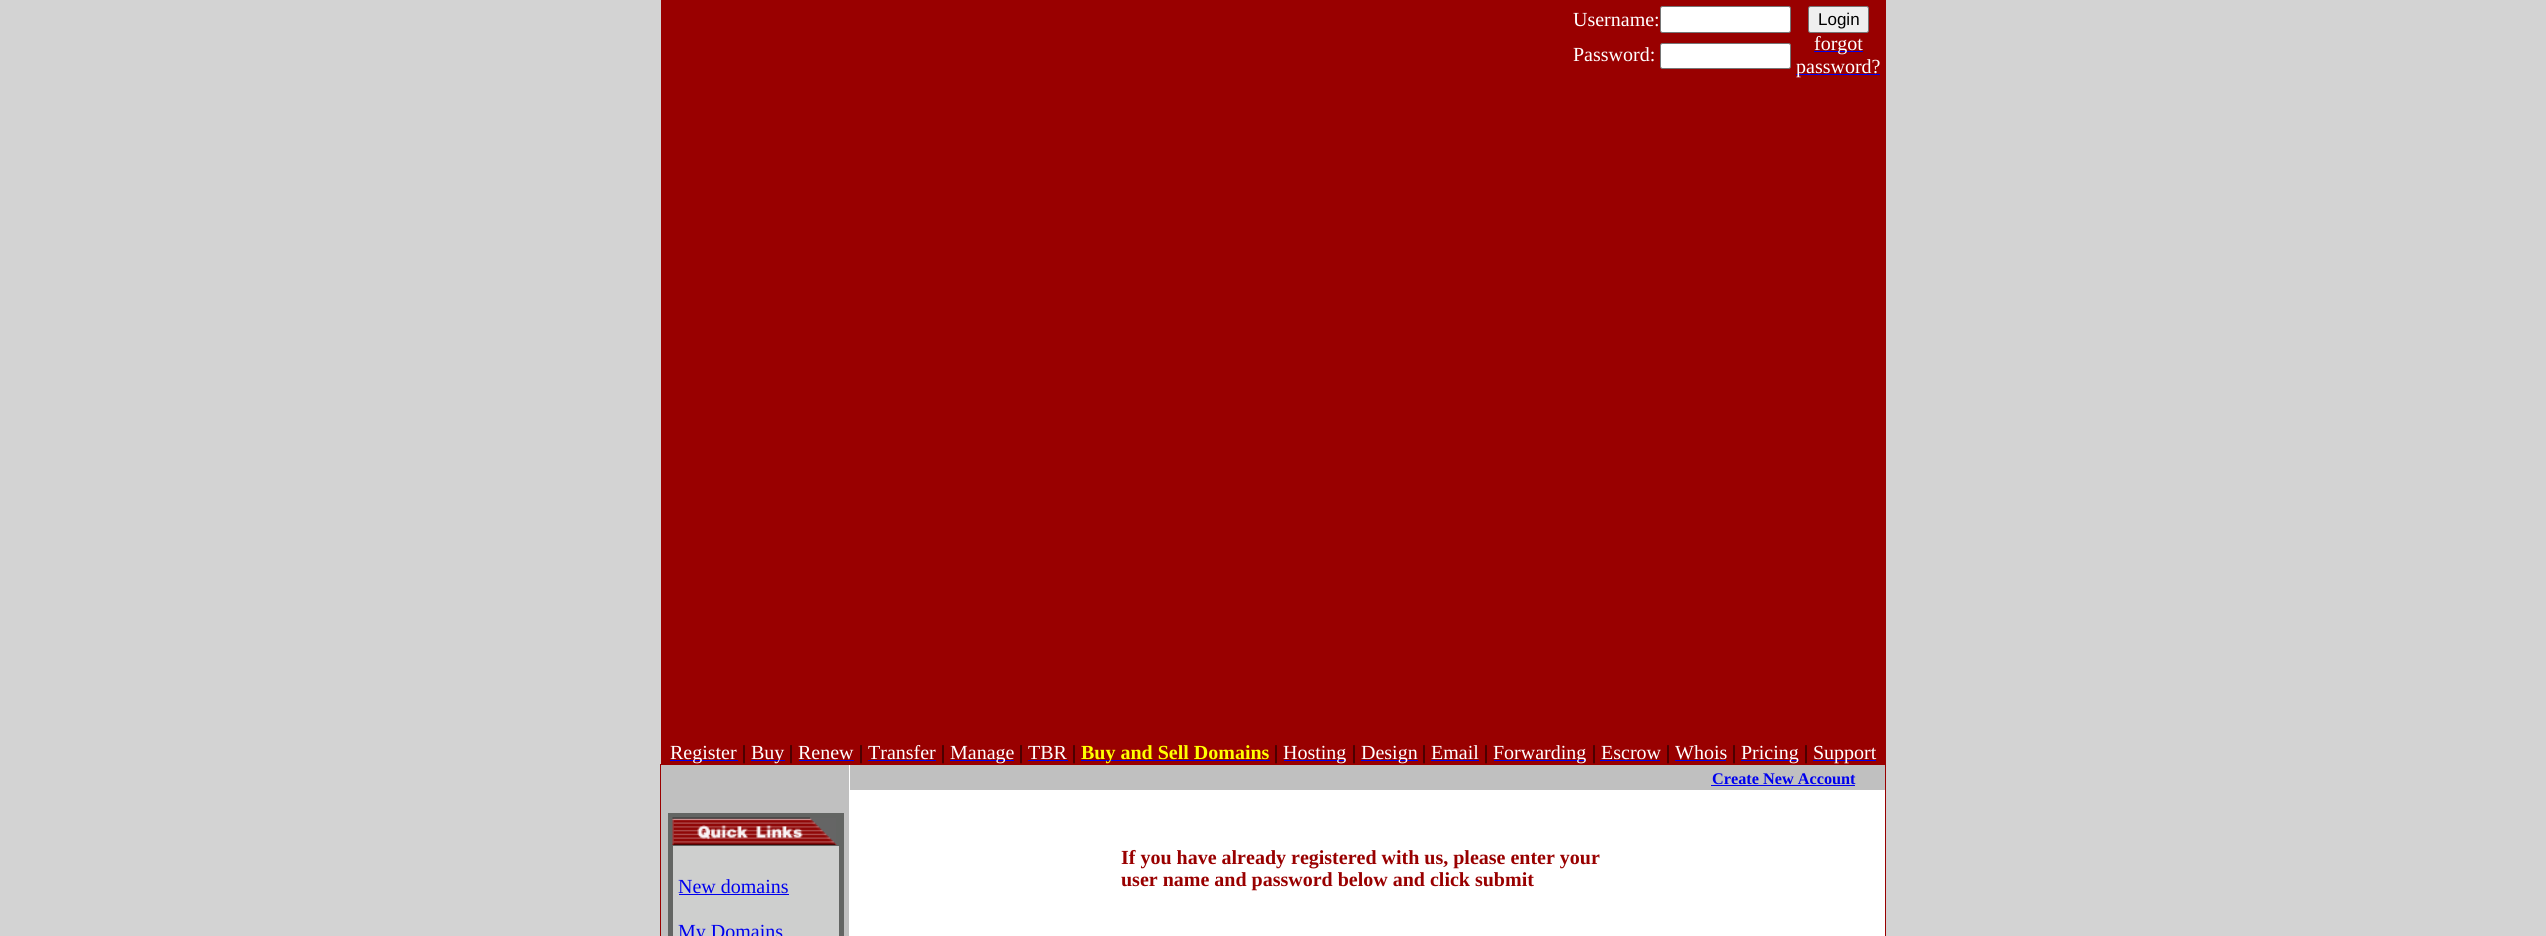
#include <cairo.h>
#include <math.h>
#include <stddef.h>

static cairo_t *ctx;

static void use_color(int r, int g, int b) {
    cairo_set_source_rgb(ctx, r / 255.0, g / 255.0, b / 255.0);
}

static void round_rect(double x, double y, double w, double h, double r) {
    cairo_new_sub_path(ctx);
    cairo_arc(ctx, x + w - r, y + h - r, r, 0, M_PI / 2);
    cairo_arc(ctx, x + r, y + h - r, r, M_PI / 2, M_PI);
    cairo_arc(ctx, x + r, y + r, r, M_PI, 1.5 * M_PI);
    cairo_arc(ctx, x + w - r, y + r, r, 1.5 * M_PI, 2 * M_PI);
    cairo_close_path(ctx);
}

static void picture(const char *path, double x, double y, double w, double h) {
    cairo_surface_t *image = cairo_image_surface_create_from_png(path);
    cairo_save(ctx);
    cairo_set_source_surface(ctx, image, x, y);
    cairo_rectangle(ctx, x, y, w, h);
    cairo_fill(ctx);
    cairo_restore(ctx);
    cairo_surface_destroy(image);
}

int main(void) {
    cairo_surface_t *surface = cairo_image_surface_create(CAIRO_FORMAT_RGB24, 2546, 936);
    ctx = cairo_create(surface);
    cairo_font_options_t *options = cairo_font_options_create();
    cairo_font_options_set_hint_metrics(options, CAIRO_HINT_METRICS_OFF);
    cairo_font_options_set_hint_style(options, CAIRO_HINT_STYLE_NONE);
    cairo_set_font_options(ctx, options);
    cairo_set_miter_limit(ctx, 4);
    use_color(211, 211, 211);
    cairo_paint(ctx);
    use_color(153, 0, 0);
    cairo_rectangle(ctx, 661, 0, 1225, 764);
    cairo_fill(ctx);
    cairo_select_font_face(ctx, "Liberation Serif", CAIRO_FONT_SLANT_NORMAL, CAIRO_FONT_WEIGHT_NORMAL);
    cairo_set_font_size(ctx, 20);
    use_color(255, 255, 255);
    cairo_move_to(ctx, 1573, 26);
    cairo_show_text(ctx, "Username:");
    round_rect(1660.5, 6.5, 130, 26, 2);
    cairo_fill_preserve(ctx);
    use_color(118, 118, 118);
    cairo_set_line_width(ctx, 1);
    cairo_stroke(ctx);
    use_color(239, 239, 239);
    round_rect(1808.5, 6.5, 60, 26, 2);
    cairo_fill_preserve(ctx);
    use_color(118, 118, 118);
    cairo_stroke(ctx);
    cairo_select_font_face(ctx, "Liberation Sans", CAIRO_FONT_SLANT_NORMAL, CAIRO_FONT_WEIGHT_NORMAL);
    cairo_set_font_size(ctx, 17);
    use_color(0, 0, 0);
    cairo_move_to(ctx, 1818, 25);
    cairo_show_text(ctx, "Login");
    cairo_select_font_face(ctx, "Liberation Serif", CAIRO_FONT_SLANT_NORMAL, CAIRO_FONT_WEIGHT_NORMAL);
    cairo_set_font_size(ctx, 20);
    use_color(255, 255, 255);
    cairo_move_to(ctx, 1573, 61);
    cairo_show_text(ctx, "Password:");
    round_rect(1660.5, 43.5, 130, 25, 2);
    cairo_fill_preserve(ctx);
    use_color(118, 118, 118);
    cairo_stroke(ctx);
    use_color(0, 0, 238);
    cairo_rectangle(ctx, 1814, 51, 49, 1);
    cairo_fill(ctx);
    use_color(255, 255, 255);
    cairo_move_to(ctx, 1814, 50);
    cairo_show_text(ctx, "forgot");
    use_color(0, 0, 238);
    cairo_rectangle(ctx, 1796, 74, 84, 1);
    cairo_fill(ctx);
    use_color(255, 255, 255);
    cairo_move_to(ctx, 1796, 73);
    cairo_show_text(ctx, "password?");
    use_color(0, 0, 238);
    cairo_rectangle(ctx, 670, 760, 68, 1);
    cairo_fill(ctx);
    use_color(255, 255, 255);
    cairo_move_to(ctx, 670, 759);
    cairo_show_text(ctx, "Register");
    use_color(0, 0, 0);
    cairo_move_to(ctx, 742, 759);
    cairo_show_text(ctx, "|");
    use_color(0, 0, 238);
    cairo_rectangle(ctx, 751, 760, 34, 1);
    cairo_fill(ctx);
    use_color(255, 255, 255);
    cairo_move_to(ctx, 751, 759);
    cairo_show_text(ctx, "Buy");
    use_color(0, 0, 0);
    cairo_move_to(ctx, 789, 759);
    cairo_show_text(ctx, "|");
    use_color(255, 255, 255);
    cairo_move_to(ctx, 798, 759);
    cairo_show_text(ctx, "Renew");
    use_color(0, 0, 238);
    cairo_rectangle(ctx, 799, 760, 55, 1);
    cairo_fill(ctx);
    use_color(0, 0, 0);
    cairo_move_to(ctx, 859, 759);
    cairo_show_text(ctx, "|");
    use_color(255, 255, 255);
    cairo_move_to(ctx, 868, 759);
    cairo_show_text(ctx, "Transfer");
    use_color(0, 0, 238);
    cairo_rectangle(ctx, 868, 760, 68, 1);
    cairo_fill(ctx);
    use_color(0, 0, 0);
    cairo_move_to(ctx, 941, 759);
    cairo_show_text(ctx, "|");
    use_color(0, 0, 238);
    cairo_rectangle(ctx, 950, 760, 64, 1);
    cairo_fill(ctx);
    use_color(255, 255, 255);
    cairo_move_to(ctx, 950, 759);
    cairo_show_text(ctx, "Manage");
    use_color(0, 0, 0);
    cairo_move_to(ctx, 1019, 759);
    cairo_show_text(ctx, "|");
    use_color(255, 255, 255);
    cairo_move_to(ctx, 1028, 759);
    cairo_show_text(ctx, "TBR");
    use_color(0, 0, 238);
    cairo_rectangle(ctx, 1028, 760, 40, 1);
    cairo_fill(ctx);
    use_color(0, 0, 0);
    cairo_move_to(ctx, 1072, 759);
    cairo_show_text(ctx, "|");
    use_color(0, 0, 238);
    cairo_rectangle(ctx, 1081, 760, 189, 1);
    cairo_fill(ctx);
    cairo_select_font_face(ctx, "Liberation Serif", CAIRO_FONT_SLANT_NORMAL, CAIRO_FONT_WEIGHT_BOLD);
    use_color(255, 255, 0);
    cairo_move_to(ctx, 1081, 759);
    cairo_show_text(ctx, "Buy and Sell Domains");
    cairo_select_font_face(ctx, "Liberation Serif", CAIRO_FONT_SLANT_NORMAL, CAIRO_FONT_WEIGHT_NORMAL);
    use_color(0, 0, 0);
    cairo_move_to(ctx, 1274, 759);
    cairo_show_text(ctx, "|");
    use_color(0, 0, 238);
    cairo_rectangle(ctx, 1284, 760, 62, 1);
    cairo_fill(ctx);
    use_color(255, 255, 255);
    cairo_move_to(ctx, 1283, 759);
    cairo_show_text(ctx, "Hosting");
    use_color(0, 0, 0);
    cairo_move_to(ctx, 1352, 759);
    cairo_show_text(ctx, "|");
    use_color(0, 0, 238);
    cairo_rectangle(ctx, 1361, 760, 57, 1);
    cairo_fill(ctx);
    use_color(255, 255, 255);
    cairo_move_to(ctx, 1361, 759);
    cairo_show_text(ctx, "Design");
    use_color(0, 0, 0);
    cairo_move_to(ctx, 1422, 759);
    cairo_show_text(ctx, "|");
    use_color(255, 255, 255);
    cairo_move_to(ctx, 1431, 759);
    cairo_show_text(ctx, "Email");
    use_color(0, 0, 238);
    cairo_rectangle(ctx, 1431, 760, 48, 1);
    cairo_fill(ctx);
    use_color(0, 0, 0);
    cairo_move_to(ctx, 1484, 759);
    cairo_show_text(ctx, "|");
    use_color(0, 0, 238);
    cairo_rectangle(ctx, 1494, 760, 92, 1);
    cairo_fill(ctx);
    use_color(255, 255, 255);
    cairo_move_to(ctx, 1493, 759);
    cairo_show_text(ctx, "Forwarding");
    use_color(0, 0, 0);
    cairo_move_to(ctx, 1592, 759);
    cairo_show_text(ctx, "|");
    use_color(255, 255, 255);
    cairo_move_to(ctx, 1601, 759);
    cairo_show_text(ctx, "Escrow");
    use_color(0, 0, 238);
    cairo_rectangle(ctx, 1600, 760, 60, 1);
    cairo_fill(ctx);
    use_color(0, 0, 0);
    cairo_move_to(ctx, 1666, 759);
    cairo_show_text(ctx, "|");
    use_color(255, 255, 255);
    cairo_move_to(ctx, 1675, 759);
    cairo_show_text(ctx, "Whois");
    use_color(0, 0, 238);
    cairo_rectangle(ctx, 1675, 760, 51, 1);
    cairo_fill(ctx);
    use_color(0, 0, 0);
    cairo_move_to(ctx, 1732, 759);
    cairo_show_text(ctx, "|");
    use_color(0, 0, 238);
    cairo_rectangle(ctx, 1741, 760, 58, 1);
    cairo_fill(ctx);
    use_color(255, 255, 255);
    cairo_move_to(ctx, 1741, 759);
    cairo_show_text(ctx, "Pricing");
    use_color(0, 0, 0);
    cairo_move_to(ctx, 1804, 759);
    cairo_show_text(ctx, "|");
    use_color(0, 0, 238);
    cairo_rectangle(ctx, 1813, 760, 63, 1);
    cairo_fill(ctx);
    use_color(255, 255, 255);
    cairo_move_to(ctx, 1813, 759);
    cairo_show_text(ctx, "Support");
    use_color(153, 0, 0);
    cairo_rectangle(ctx, 660, 764, 1226, 172);
    cairo_fill(ctx);
    use_color(255, 255, 255);
    cairo_rectangle(ctx, 849, 765, 1036, 171);
    cairo_fill(ctx);
    use_color(192, 192, 192);
    cairo_rectangle(ctx, 850, 765, 1035, 25);
    cairo_fill(ctx);
    cairo_select_font_face(ctx, "Liberation Serif", CAIRO_FONT_SLANT_NORMAL, CAIRO_FONT_WEIGHT_BOLD);
    cairo_set_font_size(ctx, 16.25);
    use_color(0, 0, 238);
    cairo_move_to(ctx, 1712, 784);
    cairo_show_text(ctx, "Create New Account");
    cairo_rectangle(ctx, 1711, 785, 144, 1);
    cairo_fill(ctx);
    cairo_set_font_size(ctx, 20);
    use_color(153, 0, 0);
    cairo_move_to(ctx, 1121, 864);
    cairo_show_text(ctx, "If you have already registered with us, please enter your");
    cairo_move_to(ctx, 1121, 886);
    cairo_show_text(ctx, "user name and password below and click submit");
    use_color(192, 192, 192);
    cairo_rectangle(ctx, 661, 765, 188, 171);
    cairo_fill(ctx);
    use_color(99, 101, 99);
    cairo_rectangle(ctx, 668, 813, 176, 123);
    cairo_fill(ctx);
    picture("img1.png", 672, 817, 165, 28);
    use_color(206, 207, 206);
    cairo_rectangle(ctx, 673, 846, 166, 90);
    cairo_fill(ctx);
    cairo_select_font_face(ctx, "Liberation Serif", CAIRO_FONT_SLANT_NORMAL, CAIRO_FONT_WEIGHT_NORMAL);
    use_color(0, 0, 238);
    cairo_move_to(ctx, 678, 893);
    cairo_show_text(ctx, "New domains");
    cairo_rectangle(ctx, 679, 894, 110, 1);
    cairo_fill(ctx);
    cairo_move_to(ctx, 678, 938);
    cairo_show_text(ctx, "My Domains");
    cairo_surface_write_to_png(surface, "result.png");
    cairo_font_options_destroy(options);
    cairo_destroy(ctx);
    cairo_surface_destroy(surface);
    return 0;
}
